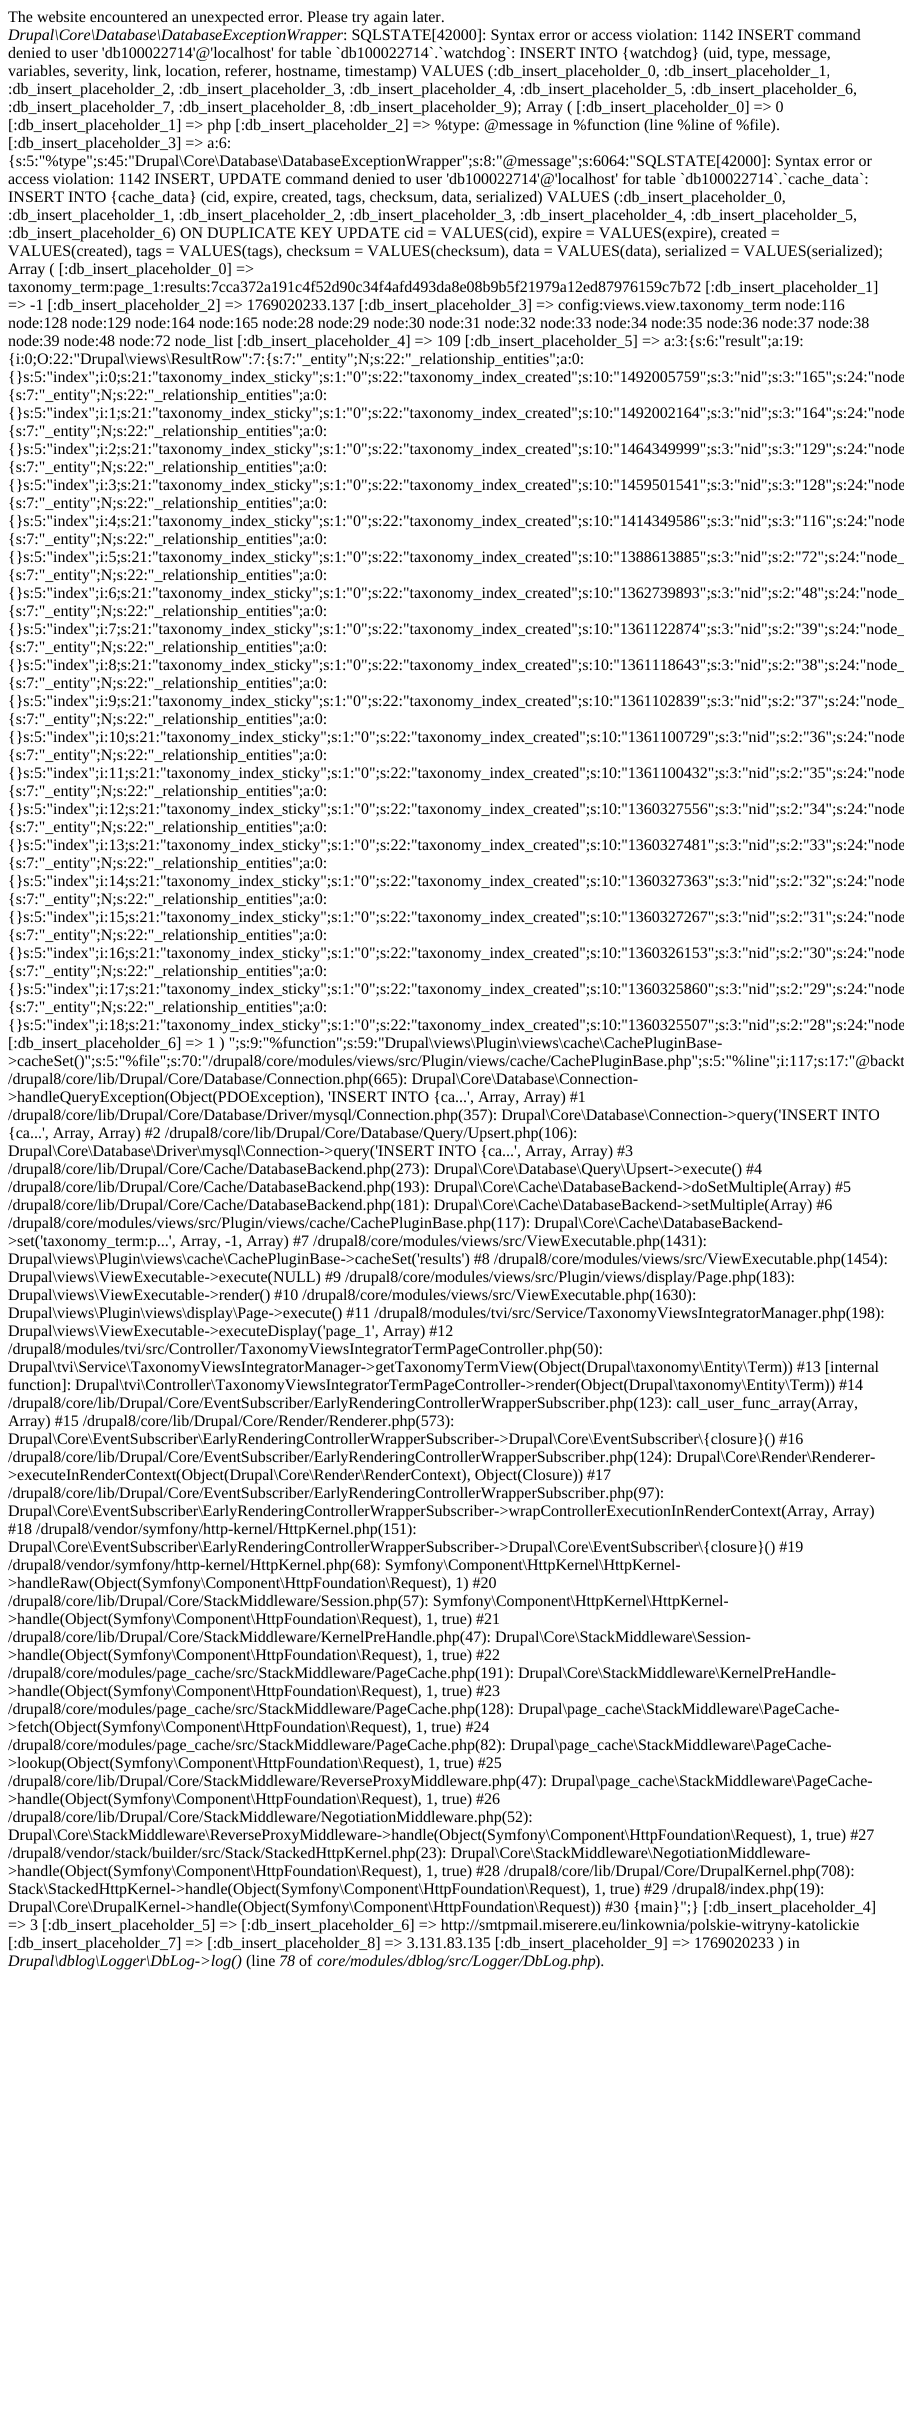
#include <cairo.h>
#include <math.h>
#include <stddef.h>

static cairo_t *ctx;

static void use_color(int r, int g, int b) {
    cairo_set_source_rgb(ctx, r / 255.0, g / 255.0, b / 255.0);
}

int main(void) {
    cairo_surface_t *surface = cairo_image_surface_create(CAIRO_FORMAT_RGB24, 904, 2431);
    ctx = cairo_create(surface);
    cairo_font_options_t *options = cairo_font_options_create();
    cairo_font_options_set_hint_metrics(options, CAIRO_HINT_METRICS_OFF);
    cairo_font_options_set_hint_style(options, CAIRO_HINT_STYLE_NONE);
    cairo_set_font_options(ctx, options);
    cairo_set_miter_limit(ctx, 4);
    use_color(255, 255, 255);
    cairo_paint(ctx);
    cairo_select_font_face(ctx, "Liberation Serif", CAIRO_FONT_SLANT_NORMAL, CAIRO_FONT_WEIGHT_NORMAL);
    cairo_set_font_size(ctx, 16);
    use_color(0, 0, 0);
    cairo_move_to(ctx, 8, 22);
    cairo_show_text(ctx, "The website encountered an unexpected error. Please try again later.");
    cairo_select_font_face(ctx, "Liberation Serif", CAIRO_FONT_SLANT_ITALIC, CAIRO_FONT_WEIGHT_NORMAL);
    cairo_move_to(ctx, 8, 40);
    cairo_show_text(ctx, "Drupal\\Core\\Database\\DatabaseExceptionWrapper");
    cairo_select_font_face(ctx, "Liberation Serif", CAIRO_FONT_SLANT_NORMAL, CAIRO_FONT_WEIGHT_NORMAL);
    cairo_move_to(ctx, 343, 40);
    cairo_show_text(ctx, ": SQLSTATE[42000]: Syntax error or access violation: 1142 INSERT command");
    cairo_move_to(ctx, 8, 58);
    cairo_show_text(ctx, "denied to user 'db100022714'@'localhost' for table `db100022714`.`watchdog`: INSERT INTO {watchdog} (uid, type, message,");
    cairo_move_to(ctx, 8, 76);
    cairo_show_text(ctx, "variables, severity, link, location, referer, hostname, timestamp) VALUES (:db_insert_placeholder_0, :db_insert_placeholder_1,");
    cairo_move_to(ctx, 8, 94);
    cairo_show_text(ctx, ":db_insert_placeholder_2, :db_insert_placeholder_3, :db_insert_placeholder_4, :db_insert_placeholder_5, :db_insert_placeholder_6,");
    cairo_move_to(ctx, 8, 112);
    cairo_show_text(ctx, ":db_insert_placeholder_7, :db_insert_placeholder_8, :db_insert_placeholder_9); Array ( [:db_insert_placeholder_0] => 0");
    cairo_move_to(ctx, 8, 130);
    cairo_show_text(ctx, "[:db_insert_placeholder_1] => php [:db_insert_placeholder_2] => %type: @message in %function (line %line of %file).");
    cairo_move_to(ctx, 8, 148);
    cairo_show_text(ctx, "[:db_insert_placeholder_3] => a:6:");
    cairo_move_to(ctx, 8, 166);
    cairo_show_text(ctx, "{s:5:\"%type\";s:45:\"Drupal\\Core\\Database\\DatabaseExceptionWrapper\";s:8:\"@message\";s:6064:\"SQLSTATE[42000]: Syntax error or");
    cairo_move_to(ctx, 8, 184);
    cairo_show_text(ctx, "access violation: 1142 INSERT, UPDATE command denied to user 'db100022714'@'localhost' for table `db100022714`.`cache_data`:");
    cairo_move_to(ctx, 8, 202);
    cairo_show_text(ctx, "INSERT INTO {cache_data} (cid, expire, created, tags, checksum, data, serialized) VALUES (:db_insert_placeholder_0,");
    cairo_move_to(ctx, 8, 220);
    cairo_show_text(ctx, ":db_insert_placeholder_1, :db_insert_placeholder_2, :db_insert_placeholder_3, :db_insert_placeholder_4, :db_insert_placeholder_5,");
    cairo_move_to(ctx, 8, 238);
    cairo_show_text(ctx, ":db_insert_placeholder_6) ON DUPLICATE KEY UPDATE cid = VALUES(cid), expire = VALUES(expire), created =");
    cairo_move_to(ctx, 8, 256);
    cairo_show_text(ctx, "VALUES(created), tags = VALUES(tags), checksum = VALUES(checksum), data = VALUES(data), serialized = VALUES(serialized);");
    cairo_move_to(ctx, 8, 274);
    cairo_show_text(ctx, "Array ( [:db_insert_placeholder_0] =>");
    cairo_move_to(ctx, 8, 292);
    cairo_show_text(ctx, "taxonomy_term:page_1:results:7cca372a191c4f52d90c34f4afd493da8e08b9b5f21979a12ed87976159c7b72 [:db_insert_placeholder_1]");
    cairo_move_to(ctx, 8, 310);
    cairo_show_text(ctx, "=> -1 [:db_insert_placeholder_2] => 1769020233.137 [:db_insert_placeholder_3] => config:views.view.taxonomy_term node:116");
    cairo_move_to(ctx, 8, 328);
    cairo_show_text(ctx, "node:128 node:129 node:164 node:165 node:28 node:29 node:30 node:31 node:32 node:33 node:34 node:35 node:36 node:37 node:38");
    cairo_move_to(ctx, 8, 346);
    cairo_show_text(ctx, "node:39 node:48 node:72 node_list [:db_insert_placeholder_4] => 109 [:db_insert_placeholder_5] => a:3:{s:6:\"result\";a:19:");
    cairo_move_to(ctx, 8, 364);
    cairo_show_text(ctx, "{i:0;O:22:\"Drupal\\views\\ResultRow\":7:{s:7:\"_entity\";N;s:22:\"_relationship_entities\";a:0:");
    cairo_move_to(ctx, 8, 382);
    cairo_show_text(ctx, "{}s:5:\"index\";i:0;s:21:\"taxonomy_index_sticky\";s:1:\"0\";s:22:\"taxonomy_index_created\";s:10:\"1492005759\";s:3:\"nid\";s:3:\"165\";s:24:\"node");
    cairo_move_to(ctx, 8, 400);
    cairo_show_text(ctx, "{s:7:\"_entity\";N;s:22:\"_relationship_entities\";a:0:");
    cairo_move_to(ctx, 8, 418);
    cairo_show_text(ctx, "{}s:5:\"index\";i:1;s:21:\"taxonomy_index_sticky\";s:1:\"0\";s:22:\"taxonomy_index_created\";s:10:\"1492002164\";s:3:\"nid\";s:3:\"164\";s:24:\"node");
    cairo_move_to(ctx, 8, 436);
    cairo_show_text(ctx, "{s:7:\"_entity\";N;s:22:\"_relationship_entities\";a:0:");
    cairo_move_to(ctx, 8, 454);
    cairo_show_text(ctx, "{}s:5:\"index\";i:2;s:21:\"taxonomy_index_sticky\";s:1:\"0\";s:22:\"taxonomy_index_created\";s:10:\"1464349999\";s:3:\"nid\";s:3:\"129\";s:24:\"node");
    cairo_move_to(ctx, 8, 472);
    cairo_show_text(ctx, "{s:7:\"_entity\";N;s:22:\"_relationship_entities\";a:0:");
    cairo_move_to(ctx, 8, 490);
    cairo_show_text(ctx, "{}s:5:\"index\";i:3;s:21:\"taxonomy_index_sticky\";s:1:\"0\";s:22:\"taxonomy_index_created\";s:10:\"1459501541\";s:3:\"nid\";s:3:\"128\";s:24:\"node");
    cairo_move_to(ctx, 8, 508);
    cairo_show_text(ctx, "{s:7:\"_entity\";N;s:22:\"_relationship_entities\";a:0:");
    cairo_move_to(ctx, 8, 526);
    cairo_show_text(ctx, "{}s:5:\"index\";i:4;s:21:\"taxonomy_index_sticky\";s:1:\"0\";s:22:\"taxonomy_index_created\";s:10:\"1414349586\";s:3:\"nid\";s:3:\"116\";s:24:\"node");
    cairo_move_to(ctx, 8, 544);
    cairo_show_text(ctx, "{s:7:\"_entity\";N;s:22:\"_relationship_entities\";a:0:");
    cairo_move_to(ctx, 8, 562);
    cairo_show_text(ctx, "{}s:5:\"index\";i:5;s:21:\"taxonomy_index_sticky\";s:1:\"0\";s:22:\"taxonomy_index_created\";s:10:\"1388613885\";s:3:\"nid\";s:2:\"72\";s:24:\"node_");
    cairo_move_to(ctx, 8, 580);
    cairo_show_text(ctx, "{s:7:\"_entity\";N;s:22:\"_relationship_entities\";a:0:");
    cairo_move_to(ctx, 8, 598);
    cairo_show_text(ctx, "{}s:5:\"index\";i:6;s:21:\"taxonomy_index_sticky\";s:1:\"0\";s:22:\"taxonomy_index_created\";s:10:\"1362739893\";s:3:\"nid\";s:2:\"48\";s:24:\"node_");
    cairo_move_to(ctx, 8, 616);
    cairo_show_text(ctx, "{s:7:\"_entity\";N;s:22:\"_relationship_entities\";a:0:");
    cairo_move_to(ctx, 8, 634);
    cairo_show_text(ctx, "{}s:5:\"index\";i:7;s:21:\"taxonomy_index_sticky\";s:1:\"0\";s:22:\"taxonomy_index_created\";s:10:\"1361122874\";s:3:\"nid\";s:2:\"39\";s:24:\"node_");
    cairo_move_to(ctx, 8, 652);
    cairo_show_text(ctx, "{s:7:\"_entity\";N;s:22:\"_relationship_entities\";a:0:");
    cairo_move_to(ctx, 8, 670);
    cairo_show_text(ctx, "{}s:5:\"index\";i:8;s:21:\"taxonomy_index_sticky\";s:1:\"0\";s:22:\"taxonomy_index_created\";s:10:\"1361118643\";s:3:\"nid\";s:2:\"38\";s:24:\"node_");
    cairo_move_to(ctx, 8, 688);
    cairo_show_text(ctx, "{s:7:\"_entity\";N;s:22:\"_relationship_entities\";a:0:");
    cairo_move_to(ctx, 8, 706);
    cairo_show_text(ctx, "{}s:5:\"index\";i:9;s:21:\"taxonomy_index_sticky\";s:1:\"0\";s:22:\"taxonomy_index_created\";s:10:\"1361102839\";s:3:\"nid\";s:2:\"37\";s:24:\"node_");
    cairo_move_to(ctx, 8, 724);
    cairo_show_text(ctx, "{s:7:\"_entity\";N;s:22:\"_relationship_entities\";a:0:");
    cairo_move_to(ctx, 8, 742);
    cairo_show_text(ctx, "{}s:5:\"index\";i:10;s:21:\"taxonomy_index_sticky\";s:1:\"0\";s:22:\"taxonomy_index_created\";s:10:\"1361100729\";s:3:\"nid\";s:2:\"36\";s:24:\"node");
    cairo_move_to(ctx, 8, 760);
    cairo_show_text(ctx, "{s:7:\"_entity\";N;s:22:\"_relationship_entities\";a:0:");
    cairo_move_to(ctx, 8, 778);
    cairo_show_text(ctx, "{}s:5:\"index\";i:11;s:21:\"taxonomy_index_sticky\";s:1:\"0\";s:22:\"taxonomy_index_created\";s:10:\"1361100432\";s:3:\"nid\";s:2:\"35\";s:24:\"node");
    cairo_move_to(ctx, 8, 796);
    cairo_show_text(ctx, "{s:7:\"_entity\";N;s:22:\"_relationship_entities\";a:0:");
    cairo_move_to(ctx, 8, 814);
    cairo_show_text(ctx, "{}s:5:\"index\";i:12;s:21:\"taxonomy_index_sticky\";s:1:\"0\";s:22:\"taxonomy_index_created\";s:10:\"1360327556\";s:3:\"nid\";s:2:\"34\";s:24:\"node");
    cairo_move_to(ctx, 8, 832);
    cairo_show_text(ctx, "{s:7:\"_entity\";N;s:22:\"_relationship_entities\";a:0:");
    cairo_move_to(ctx, 8, 850);
    cairo_show_text(ctx, "{}s:5:\"index\";i:13;s:21:\"taxonomy_index_sticky\";s:1:\"0\";s:22:\"taxonomy_index_created\";s:10:\"1360327481\";s:3:\"nid\";s:2:\"33\";s:24:\"node");
    cairo_move_to(ctx, 8, 868);
    cairo_show_text(ctx, "{s:7:\"_entity\";N;s:22:\"_relationship_entities\";a:0:");
    cairo_move_to(ctx, 8, 886);
    cairo_show_text(ctx, "{}s:5:\"index\";i:14;s:21:\"taxonomy_index_sticky\";s:1:\"0\";s:22:\"taxonomy_index_created\";s:10:\"1360327363\";s:3:\"nid\";s:2:\"32\";s:24:\"node");
    cairo_move_to(ctx, 8, 904);
    cairo_show_text(ctx, "{s:7:\"_entity\";N;s:22:\"_relationship_entities\";a:0:");
    cairo_move_to(ctx, 8, 922);
    cairo_show_text(ctx, "{}s:5:\"index\";i:15;s:21:\"taxonomy_index_sticky\";s:1:\"0\";s:22:\"taxonomy_index_created\";s:10:\"1360327267\";s:3:\"nid\";s:2:\"31\";s:24:\"node");
    cairo_move_to(ctx, 8, 940);
    cairo_show_text(ctx, "{s:7:\"_entity\";N;s:22:\"_relationship_entities\";a:0:");
    cairo_move_to(ctx, 8, 958);
    cairo_show_text(ctx, "{}s:5:\"index\";i:16;s:21:\"taxonomy_index_sticky\";s:1:\"0\";s:22:\"taxonomy_index_created\";s:10:\"1360326153\";s:3:\"nid\";s:2:\"30\";s:24:\"node");
    cairo_move_to(ctx, 8, 976);
    cairo_show_text(ctx, "{s:7:\"_entity\";N;s:22:\"_relationship_entities\";a:0:");
    cairo_move_to(ctx, 8, 994);
    cairo_show_text(ctx, "{}s:5:\"index\";i:17;s:21:\"taxonomy_index_sticky\";s:1:\"0\";s:22:\"taxonomy_index_created\";s:10:\"1360325860\";s:3:\"nid\";s:2:\"29\";s:24:\"node");
    cairo_move_to(ctx, 8, 1012);
    cairo_show_text(ctx, "{s:7:\"_entity\";N;s:22:\"_relationship_entities\";a:0:");
    cairo_move_to(ctx, 8, 1030);
    cairo_show_text(ctx, "{}s:5:\"index\";i:18;s:21:\"taxonomy_index_sticky\";s:1:\"0\";s:22:\"taxonomy_index_created\";s:10:\"1360325507\";s:3:\"nid\";s:2:\"28\";s:24:\"node");
    cairo_move_to(ctx, 8, 1048);
    cairo_show_text(ctx, "[:db_insert_placeholder_6] => 1 ) \";s:9:\"%function\";s:59:\"Drupal\\views\\Plugin\\views\\cache\\CachePluginBase-");
    cairo_move_to(ctx, 8, 1066);
    cairo_show_text(ctx, ">cacheSet()\";s:5:\"%file\";s:70:\"/drupal8/core/modules/views/src/Plugin/views/cache/CachePluginBase.php\";s:5:\"%line\";i:117;s:17:\"@backt");
    cairo_move_to(ctx, 8, 1084);
    cairo_show_text(ctx, "/drupal8/core/lib/Drupal/Core/Database/Connection.php(665): Drupal\\Core\\Database\\Connection-");
    cairo_move_to(ctx, 8, 1102);
    cairo_show_text(ctx, ">handleQueryException(Object(PDOException), 'INSERT INTO {ca...', Array, Array) #1");
    cairo_move_to(ctx, 8, 1120);
    cairo_show_text(ctx, "/drupal8/core/lib/Drupal/Core/Database/Driver/mysql/Connection.php(357): Drupal\\Core\\Database\\Connection->query('INSERT INTO");
    cairo_move_to(ctx, 8, 1138);
    cairo_show_text(ctx, "{ca...', Array, Array) #2 /drupal8/core/lib/Drupal/Core/Database/Query/Upsert.php(106):");
    cairo_move_to(ctx, 8, 1156);
    cairo_show_text(ctx, "Drupal\\Core\\Database\\Driver\\mysql\\Connection->query('INSERT INTO {ca...', Array, Array) #3");
    cairo_move_to(ctx, 8, 1174);
    cairo_show_text(ctx, "/drupal8/core/lib/Drupal/Core/Cache/DatabaseBackend.php(273): Drupal\\Core\\Database\\Query\\Upsert->execute() #4");
    cairo_move_to(ctx, 8, 1192);
    cairo_show_text(ctx, "/drupal8/core/lib/Drupal/Core/Cache/DatabaseBackend.php(193): Drupal\\Core\\Cache\\DatabaseBackend->doSetMultiple(Array) #5");
    cairo_move_to(ctx, 8, 1210);
    cairo_show_text(ctx, "/drupal8/core/lib/Drupal/Core/Cache/DatabaseBackend.php(181): Drupal\\Core\\Cache\\DatabaseBackend->setMultiple(Array) #6");
    cairo_move_to(ctx, 8, 1228);
    cairo_show_text(ctx, "/drupal8/core/modules/views/src/Plugin/views/cache/CachePluginBase.php(117): Drupal\\Core\\Cache\\DatabaseBackend-");
    cairo_move_to(ctx, 8, 1246);
    cairo_show_text(ctx, ">set('taxonomy_term:p...', Array, -1, Array) #7 /drupal8/core/modules/views/src/ViewExecutable.php(1431):");
    cairo_move_to(ctx, 8, 1264);
    cairo_show_text(ctx, "Drupal\\views\\Plugin\\views\\cache\\CachePluginBase->cacheSet('results') #8 /drupal8/core/modules/views/src/ViewExecutable.php(1454):");
    cairo_move_to(ctx, 8, 1282);
    cairo_show_text(ctx, "Drupal\\views\\ViewExecutable->execute(NULL) #9 /drupal8/core/modules/views/src/Plugin/views/display/Page.php(183):");
    cairo_move_to(ctx, 8, 1300);
    cairo_show_text(ctx, "Drupal\\views\\ViewExecutable->render() #10 /drupal8/core/modules/views/src/ViewExecutable.php(1630):");
    cairo_move_to(ctx, 8, 1318);
    cairo_show_text(ctx, "Drupal\\views\\Plugin\\views\\display\\Page->execute() #11 /drupal8/modules/tvi/src/Service/TaxonomyViewsIntegratorManager.php(198):");
    cairo_move_to(ctx, 8, 1336);
    cairo_show_text(ctx, "Drupal\\views\\ViewExecutable->executeDisplay('page_1', Array) #12");
    cairo_move_to(ctx, 8, 1354);
    cairo_show_text(ctx, "/drupal8/modules/tvi/src/Controller/TaxonomyViewsIntegratorTermPageController.php(50):");
    cairo_move_to(ctx, 8, 1372);
    cairo_show_text(ctx, "Drupal\\tvi\\Service\\TaxonomyViewsIntegratorManager->getTaxonomyTermView(Object(Drupal\\taxonomy\\Entity\\Term)) #13 [internal");
    cairo_move_to(ctx, 8, 1390);
    cairo_show_text(ctx, "function]: Drupal\\tvi\\Controller\\TaxonomyViewsIntegratorTermPageController->render(Object(Drupal\\taxonomy\\Entity\\Term)) #14");
    cairo_move_to(ctx, 8, 1408);
    cairo_show_text(ctx, "/drupal8/core/lib/Drupal/Core/EventSubscriber/EarlyRenderingControllerWrapperSubscriber.php(123): call_user_func_array(Array,");
    cairo_move_to(ctx, 8, 1426);
    cairo_show_text(ctx, "Array) #15 /drupal8/core/lib/Drupal/Core/Render/Renderer.php(573):");
    cairo_move_to(ctx, 8, 1444);
    cairo_show_text(ctx, "Drupal\\Core\\EventSubscriber\\EarlyRenderingControllerWrapperSubscriber->Drupal\\Core\\EventSubscriber\\{closure}() #16");
    cairo_move_to(ctx, 8, 1462);
    cairo_show_text(ctx, "/drupal8/core/lib/Drupal/Core/EventSubscriber/EarlyRenderingControllerWrapperSubscriber.php(124): Drupal\\Core\\Render\\Renderer-");
    cairo_move_to(ctx, 8, 1480);
    cairo_show_text(ctx, ">executeInRenderContext(Object(Drupal\\Core\\Render\\RenderContext), Object(Closure)) #17");
    cairo_move_to(ctx, 8, 1498);
    cairo_show_text(ctx, "/drupal8/core/lib/Drupal/Core/EventSubscriber/EarlyRenderingControllerWrapperSubscriber.php(97):");
    cairo_move_to(ctx, 8, 1516);
    cairo_show_text(ctx, "Drupal\\Core\\EventSubscriber\\EarlyRenderingControllerWrapperSubscriber->wrapControllerExecutionInRenderContext(Array, Array)");
    cairo_move_to(ctx, 8, 1534);
    cairo_show_text(ctx, "#18 /drupal8/vendor/symfony/http-kernel/HttpKernel.php(151):");
    cairo_move_to(ctx, 8, 1552);
    cairo_show_text(ctx, "Drupal\\Core\\EventSubscriber\\EarlyRenderingControllerWrapperSubscriber->Drupal\\Core\\EventSubscriber\\{closure}() #19");
    cairo_move_to(ctx, 8, 1570);
    cairo_show_text(ctx, "/drupal8/vendor/symfony/http-kernel/HttpKernel.php(68): Symfony\\Component\\HttpKernel\\HttpKernel-");
    cairo_move_to(ctx, 8, 1588);
    cairo_show_text(ctx, ">handleRaw(Object(Symfony\\Component\\HttpFoundation\\Request), 1) #20");
    cairo_move_to(ctx, 8, 1606);
    cairo_show_text(ctx, "/drupal8/core/lib/Drupal/Core/StackMiddleware/Session.php(57): Symfony\\Component\\HttpKernel\\HttpKernel-");
    cairo_move_to(ctx, 8, 1624);
    cairo_show_text(ctx, ">handle(Object(Symfony\\Component\\HttpFoundation\\Request), 1, true) #21");
    cairo_move_to(ctx, 8, 1642);
    cairo_show_text(ctx, "/drupal8/core/lib/Drupal/Core/StackMiddleware/KernelPreHandle.php(47): Drupal\\Core\\StackMiddleware\\Session-");
    cairo_move_to(ctx, 8, 1660);
    cairo_show_text(ctx, ">handle(Object(Symfony\\Component\\HttpFoundation\\Request), 1, true) #22");
    cairo_move_to(ctx, 8, 1678);
    cairo_show_text(ctx, "/drupal8/core/modules/page_cache/src/StackMiddleware/PageCache.php(191): Drupal\\Core\\StackMiddleware\\KernelPreHandle-");
    cairo_move_to(ctx, 8, 1696);
    cairo_show_text(ctx, ">handle(Object(Symfony\\Component\\HttpFoundation\\Request), 1, true) #23");
    cairo_move_to(ctx, 8, 1714);
    cairo_show_text(ctx, "/drupal8/core/modules/page_cache/src/StackMiddleware/PageCache.php(128): Drupal\\page_cache\\StackMiddleware\\PageCache-");
    cairo_move_to(ctx, 8, 1732);
    cairo_show_text(ctx, ">fetch(Object(Symfony\\Component\\HttpFoundation\\Request), 1, true) #24");
    cairo_move_to(ctx, 8, 1750);
    cairo_show_text(ctx, "/drupal8/core/modules/page_cache/src/StackMiddleware/PageCache.php(82): Drupal\\page_cache\\StackMiddleware\\PageCache-");
    cairo_move_to(ctx, 8, 1768);
    cairo_show_text(ctx, ">lookup(Object(Symfony\\Component\\HttpFoundation\\Request), 1, true) #25");
    cairo_move_to(ctx, 8, 1786);
    cairo_show_text(ctx, "/drupal8/core/lib/Drupal/Core/StackMiddleware/ReverseProxyMiddleware.php(47): Drupal\\page_cache\\StackMiddleware\\PageCache-");
    cairo_move_to(ctx, 8, 1804);
    cairo_show_text(ctx, ">handle(Object(Symfony\\Component\\HttpFoundation\\Request), 1, true) #26");
    cairo_move_to(ctx, 8, 1822);
    cairo_show_text(ctx, "/drupal8/core/lib/Drupal/Core/StackMiddleware/NegotiationMiddleware.php(52):");
    cairo_move_to(ctx, 8, 1840);
    cairo_show_text(ctx, "Drupal\\Core\\StackMiddleware\\ReverseProxyMiddleware->handle(Object(Symfony\\Component\\HttpFoundation\\Request), 1, true) #27");
    cairo_move_to(ctx, 8, 1858);
    cairo_show_text(ctx, "/drupal8/vendor/stack/builder/src/Stack/StackedHttpKernel.php(23): Drupal\\Core\\StackMiddleware\\NegotiationMiddleware-");
    cairo_move_to(ctx, 8, 1876);
    cairo_show_text(ctx, ">handle(Object(Symfony\\Component\\HttpFoundation\\Request), 1, true) #28 /drupal8/core/lib/Drupal/Core/DrupalKernel.php(708):");
    cairo_move_to(ctx, 8, 1894);
    cairo_show_text(ctx, "Stack\\StackedHttpKernel->handle(Object(Symfony\\Component\\HttpFoundation\\Request), 1, true) #29 /drupal8/index.php(19):");
    cairo_move_to(ctx, 8, 1912);
    cairo_show_text(ctx, "Drupal\\Core\\DrupalKernel->handle(Object(Symfony\\Component\\HttpFoundation\\Request)) #30 {main}\";} [:db_insert_placeholder_4]");
    cairo_move_to(ctx, 8, 1930);
    cairo_show_text(ctx, "=> 3 [:db_insert_placeholder_5] => [:db_insert_placeholder_6] => http://smtpmail.miserere.eu/linkownia/polskie-witryny-katolickie");
    cairo_move_to(ctx, 8, 1948);
    cairo_show_text(ctx, "[:db_insert_placeholder_7] => [:db_insert_placeholder_8] => 3.131.83.135 [:db_insert_placeholder_9] => 1769020233 ) in");
    cairo_select_font_face(ctx, "Liberation Serif", CAIRO_FONT_SLANT_ITALIC, CAIRO_FONT_WEIGHT_NORMAL);
    cairo_move_to(ctx, 8, 1966);
    cairo_show_text(ctx, "Drupal\\dblog\\Logger\\DbLog->log()");
    cairo_select_font_face(ctx, "Liberation Serif", CAIRO_FONT_SLANT_NORMAL, CAIRO_FONT_WEIGHT_NORMAL);
    cairo_move_to(ctx, 246, 1966);
    cairo_show_text(ctx, "(line");
    cairo_select_font_face(ctx, "Liberation Serif", CAIRO_FONT_SLANT_ITALIC, CAIRO_FONT_WEIGHT_NORMAL);
    cairo_move_to(ctx, 279, 1966);
    cairo_show_text(ctx, "78");
    cairo_select_font_face(ctx, "Liberation Serif", CAIRO_FONT_SLANT_NORMAL, CAIRO_FONT_WEIGHT_NORMAL);
    cairo_move_to(ctx, 299, 1966);
    cairo_show_text(ctx, "of");
    cairo_select_font_face(ctx, "Liberation Serif", CAIRO_FONT_SLANT_ITALIC, CAIRO_FONT_WEIGHT_NORMAL);
    cairo_move_to(ctx, 317, 1966);
    cairo_show_text(ctx, "core/modules/dblog/src/Logger/DbLog.php");
    cairo_select_font_face(ctx, "Liberation Serif", CAIRO_FONT_SLANT_NORMAL, CAIRO_FONT_WEIGHT_NORMAL);
    cairo_move_to(ctx, 595, 1966);
    cairo_show_text(ctx, ").");
    cairo_surface_write_to_png(surface, "result.png");
    cairo_font_options_destroy(options);
    cairo_destroy(ctx);
    cairo_surface_destroy(surface);
    return 0;
}
